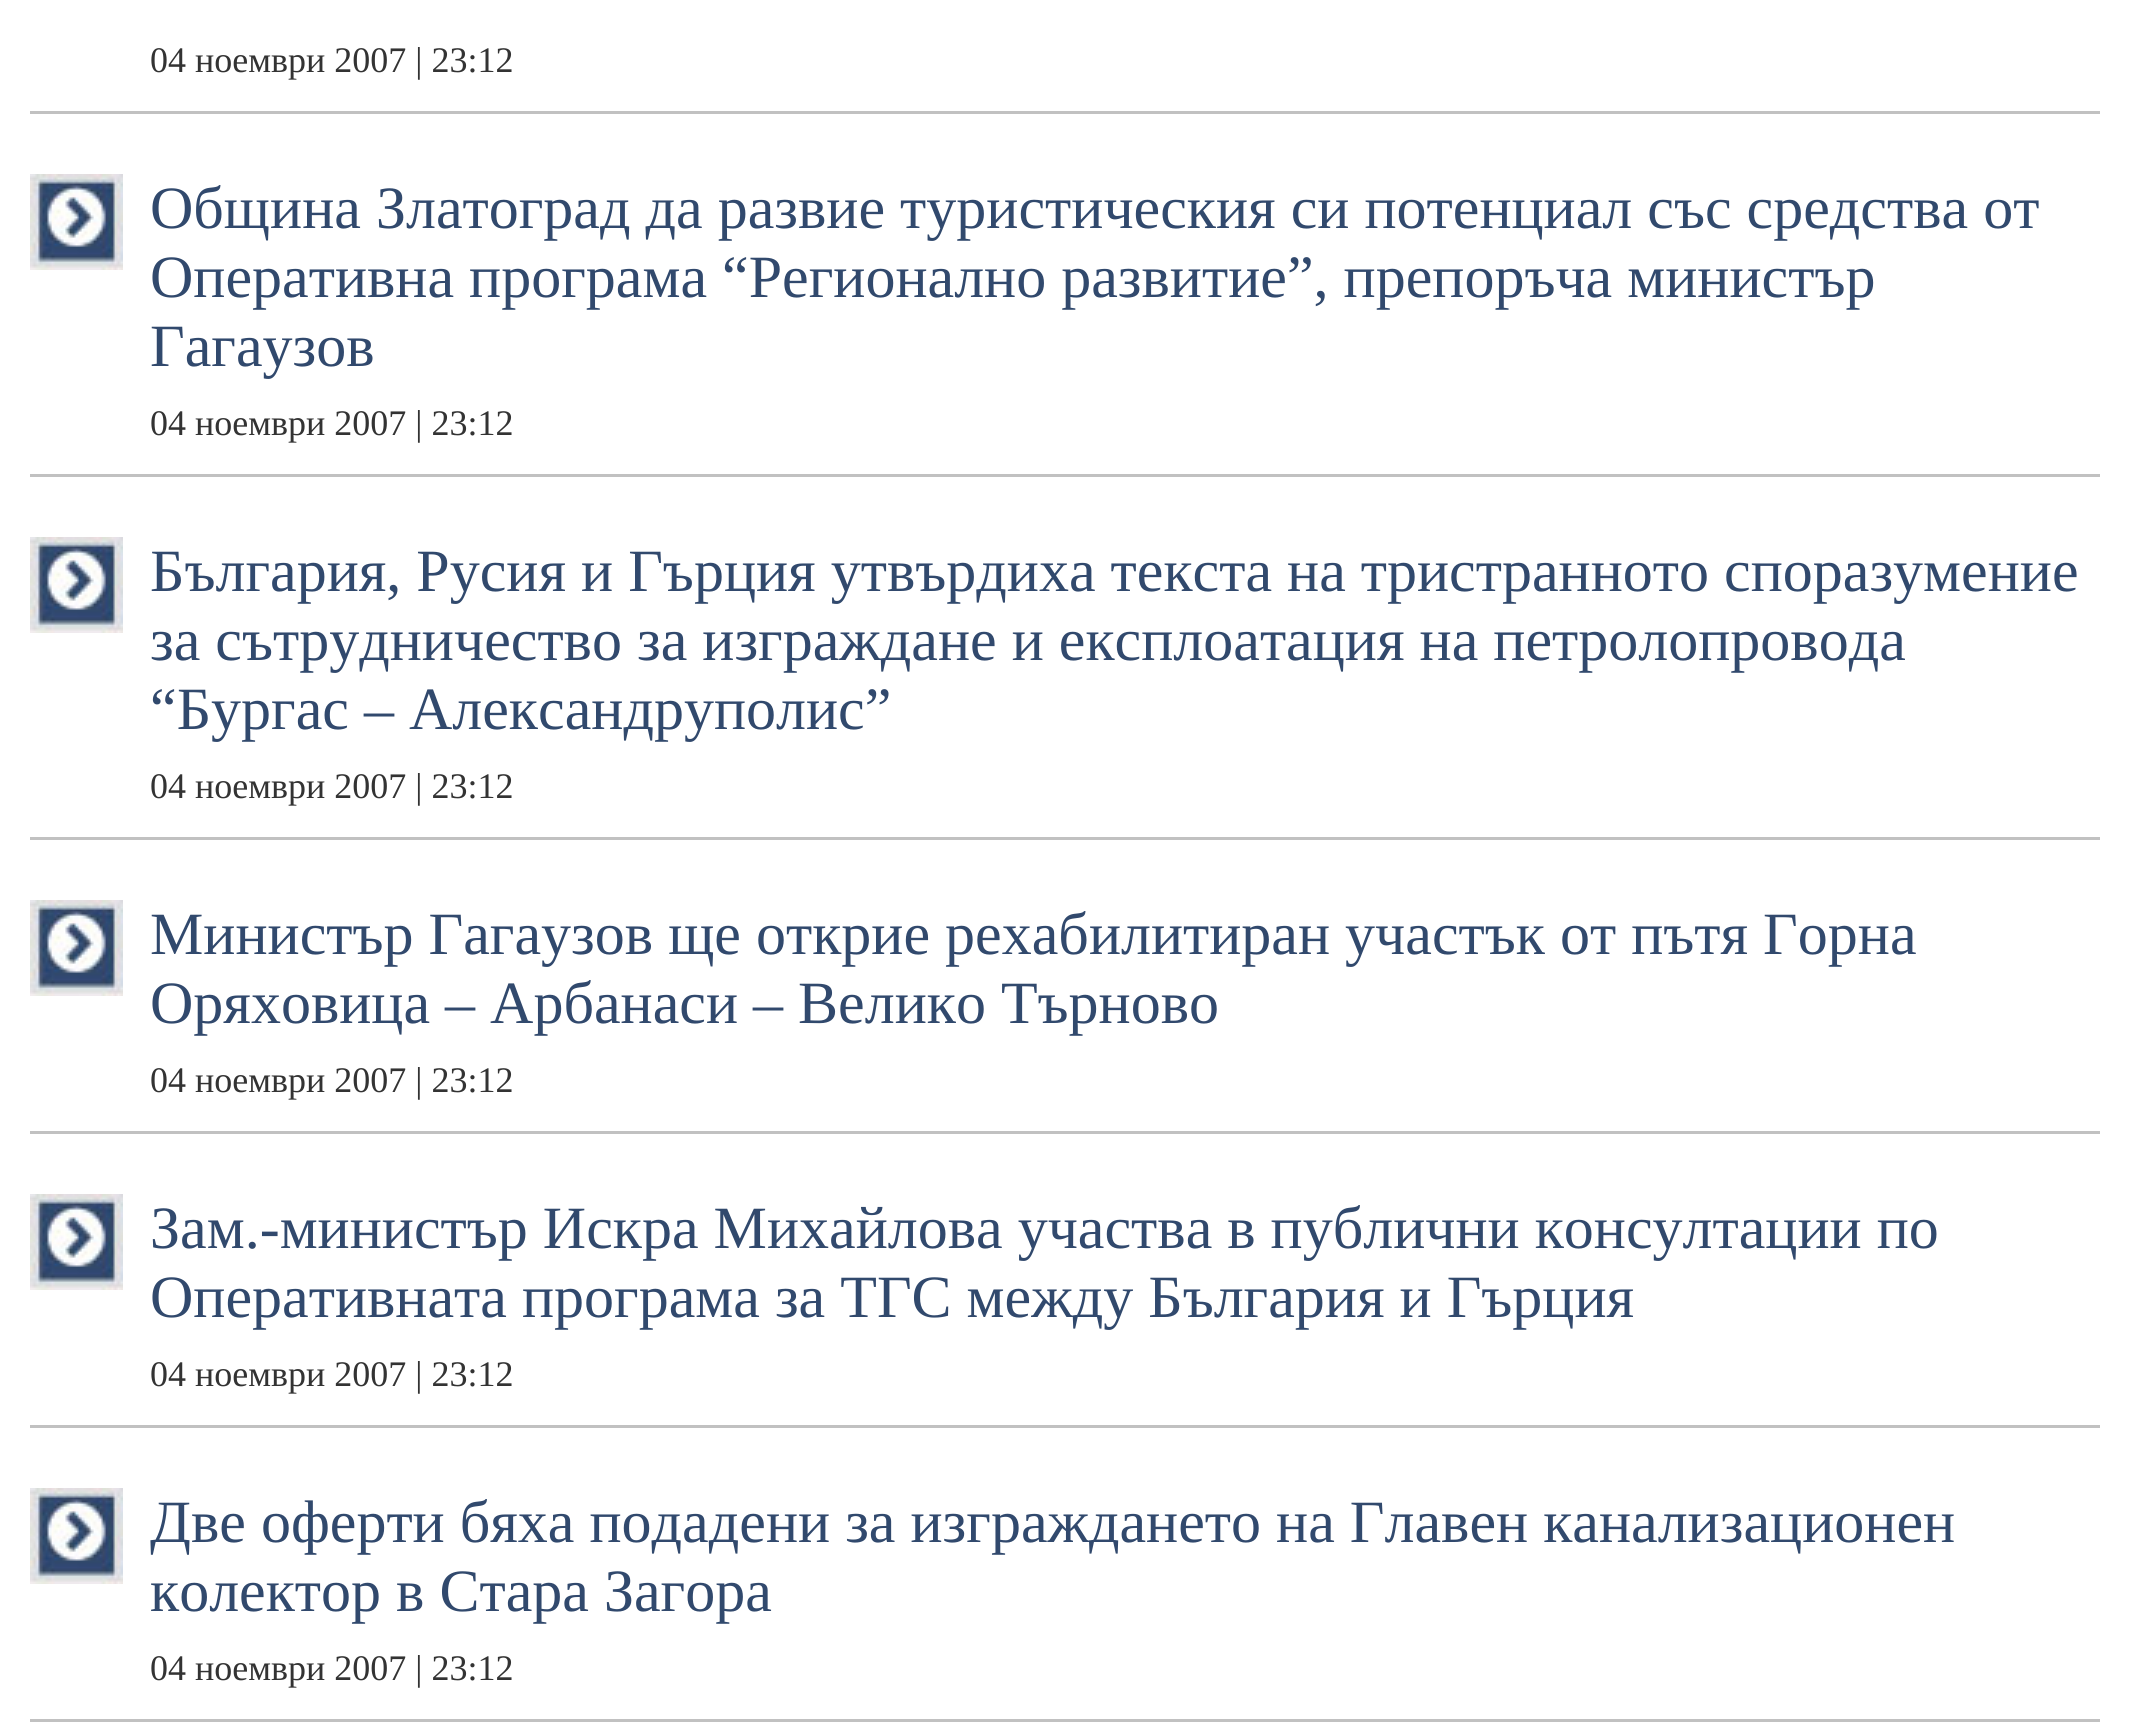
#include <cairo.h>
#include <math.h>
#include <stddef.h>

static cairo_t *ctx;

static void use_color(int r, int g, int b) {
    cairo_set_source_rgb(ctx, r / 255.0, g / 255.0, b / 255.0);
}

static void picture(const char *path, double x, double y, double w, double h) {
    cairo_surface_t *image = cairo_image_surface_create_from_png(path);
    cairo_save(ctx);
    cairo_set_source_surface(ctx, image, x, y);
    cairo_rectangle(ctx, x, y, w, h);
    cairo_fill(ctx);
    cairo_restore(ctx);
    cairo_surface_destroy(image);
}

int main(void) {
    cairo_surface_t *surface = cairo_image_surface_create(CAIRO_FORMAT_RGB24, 2130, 1727);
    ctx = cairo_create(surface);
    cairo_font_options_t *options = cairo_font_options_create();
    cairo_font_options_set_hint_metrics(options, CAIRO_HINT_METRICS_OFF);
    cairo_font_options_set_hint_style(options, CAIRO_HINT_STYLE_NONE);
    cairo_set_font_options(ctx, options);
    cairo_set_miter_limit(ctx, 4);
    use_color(255, 255, 255);
    cairo_paint(ctx);
    use_color(193, 193, 193);
    cairo_rectangle(ctx, 30, 111, 2070, 3);
    cairo_fill(ctx);
    cairo_select_font_face(ctx, "Liberation Serif", CAIRO_FONT_SLANT_NORMAL, CAIRO_FONT_WEIGHT_NORMAL);
    cairo_set_font_size(ctx, 36);
    use_color(51, 51, 51);
    cairo_move_to(ctx, 150, 72);
    cairo_show_text(ctx, "04 ноември 2007 | 23:12");
    use_color(193, 193, 193);
    cairo_rectangle(ctx, 30, 474, 2070, 3);
    cairo_fill(ctx);
    picture("img1.png", 30, 174, 93, 96);
    cairo_set_font_size(ctx, 60);
    use_color(49, 73, 109);
    cairo_move_to(ctx, 150, 228);
    cairo_show_text(ctx, "Община Златоград да развие туристическия си потенциал със средства от");
    cairo_move_to(ctx, 150, 297);
    cairo_show_text(ctx, "Оперативна програма “Регионално развитие”, препоръча министър");
    cairo_move_to(ctx, 150, 366);
    cairo_show_text(ctx, "Гагаузов");
    cairo_set_font_size(ctx, 36);
    use_color(51, 51, 51);
    cairo_move_to(ctx, 150, 435);
    cairo_show_text(ctx, "04 ноември 2007 | 23:12");
    use_color(193, 193, 193);
    cairo_rectangle(ctx, 30, 837, 2070, 3);
    cairo_fill(ctx);
    picture("img1.png", 30, 537, 93, 96);
    cairo_set_font_size(ctx, 60);
    use_color(49, 73, 109);
    cairo_move_to(ctx, 150, 591);
    cairo_show_text(ctx, "България, Русия и Гърция утвърдиха текста на тристранното споразумение");
    cairo_move_to(ctx, 150, 660);
    cairo_show_text(ctx, "за сътрудничество за изграждане и експлоатация на петролопровода");
    cairo_move_to(ctx, 150, 729);
    cairo_show_text(ctx, "“Бургас – Александруполис”");
    cairo_set_font_size(ctx, 36);
    use_color(51, 51, 51);
    cairo_move_to(ctx, 150, 798);
    cairo_show_text(ctx, "04 ноември 2007 | 23:12");
    use_color(193, 193, 193);
    cairo_rectangle(ctx, 30, 1131, 2070, 3);
    cairo_fill(ctx);
    picture("img1.png", 30, 900, 93, 96);
    cairo_set_font_size(ctx, 60);
    use_color(49, 73, 109);
    cairo_move_to(ctx, 150, 954);
    cairo_show_text(ctx, "Министър Гагаузов ще открие рехабилитиран участък от пътя Горна");
    cairo_move_to(ctx, 150, 1023);
    cairo_show_text(ctx, "Оряховица – Арбанаси – Велико Търново");
    cairo_set_font_size(ctx, 36);
    use_color(51, 51, 51);
    cairo_move_to(ctx, 150, 1092);
    cairo_show_text(ctx, "04 ноември 2007 | 23:12");
    use_color(193, 193, 193);
    cairo_rectangle(ctx, 30, 1425, 2070, 3);
    cairo_fill(ctx);
    picture("img1.png", 30, 1194, 93, 96);
    cairo_set_font_size(ctx, 60);
    use_color(49, 73, 109);
    cairo_move_to(ctx, 150, 1248);
    cairo_show_text(ctx, "Зам.-министър Искра Михайлова участва в публични консултации по");
    cairo_move_to(ctx, 150, 1317);
    cairo_show_text(ctx, "Оперативната програма за ТГС между България и Гърция");
    cairo_set_font_size(ctx, 36);
    use_color(51, 51, 51);
    cairo_move_to(ctx, 150, 1386);
    cairo_show_text(ctx, "04 ноември 2007 | 23:12");
    use_color(193, 193, 193);
    cairo_rectangle(ctx, 30, 1719, 2070, 3);
    cairo_fill(ctx);
    picture("img1.png", 30, 1488, 93, 96);
    cairo_set_font_size(ctx, 60);
    use_color(49, 73, 109);
    cairo_move_to(ctx, 150, 1542);
    cairo_show_text(ctx, "Две оферти бяха подадени за изграждането на Главен канализационен");
    cairo_move_to(ctx, 150, 1611);
    cairo_show_text(ctx, "колектор в Стара Загора");
    cairo_set_font_size(ctx, 36);
    use_color(51, 51, 51);
    cairo_move_to(ctx, 150, 1680);
    cairo_show_text(ctx, "04 ноември 2007 | 23:12");
    cairo_surface_write_to_png(surface, "result.png");
    cairo_font_options_destroy(options);
    cairo_destroy(ctx);
    cairo_surface_destroy(surface);
    return 0;
}
